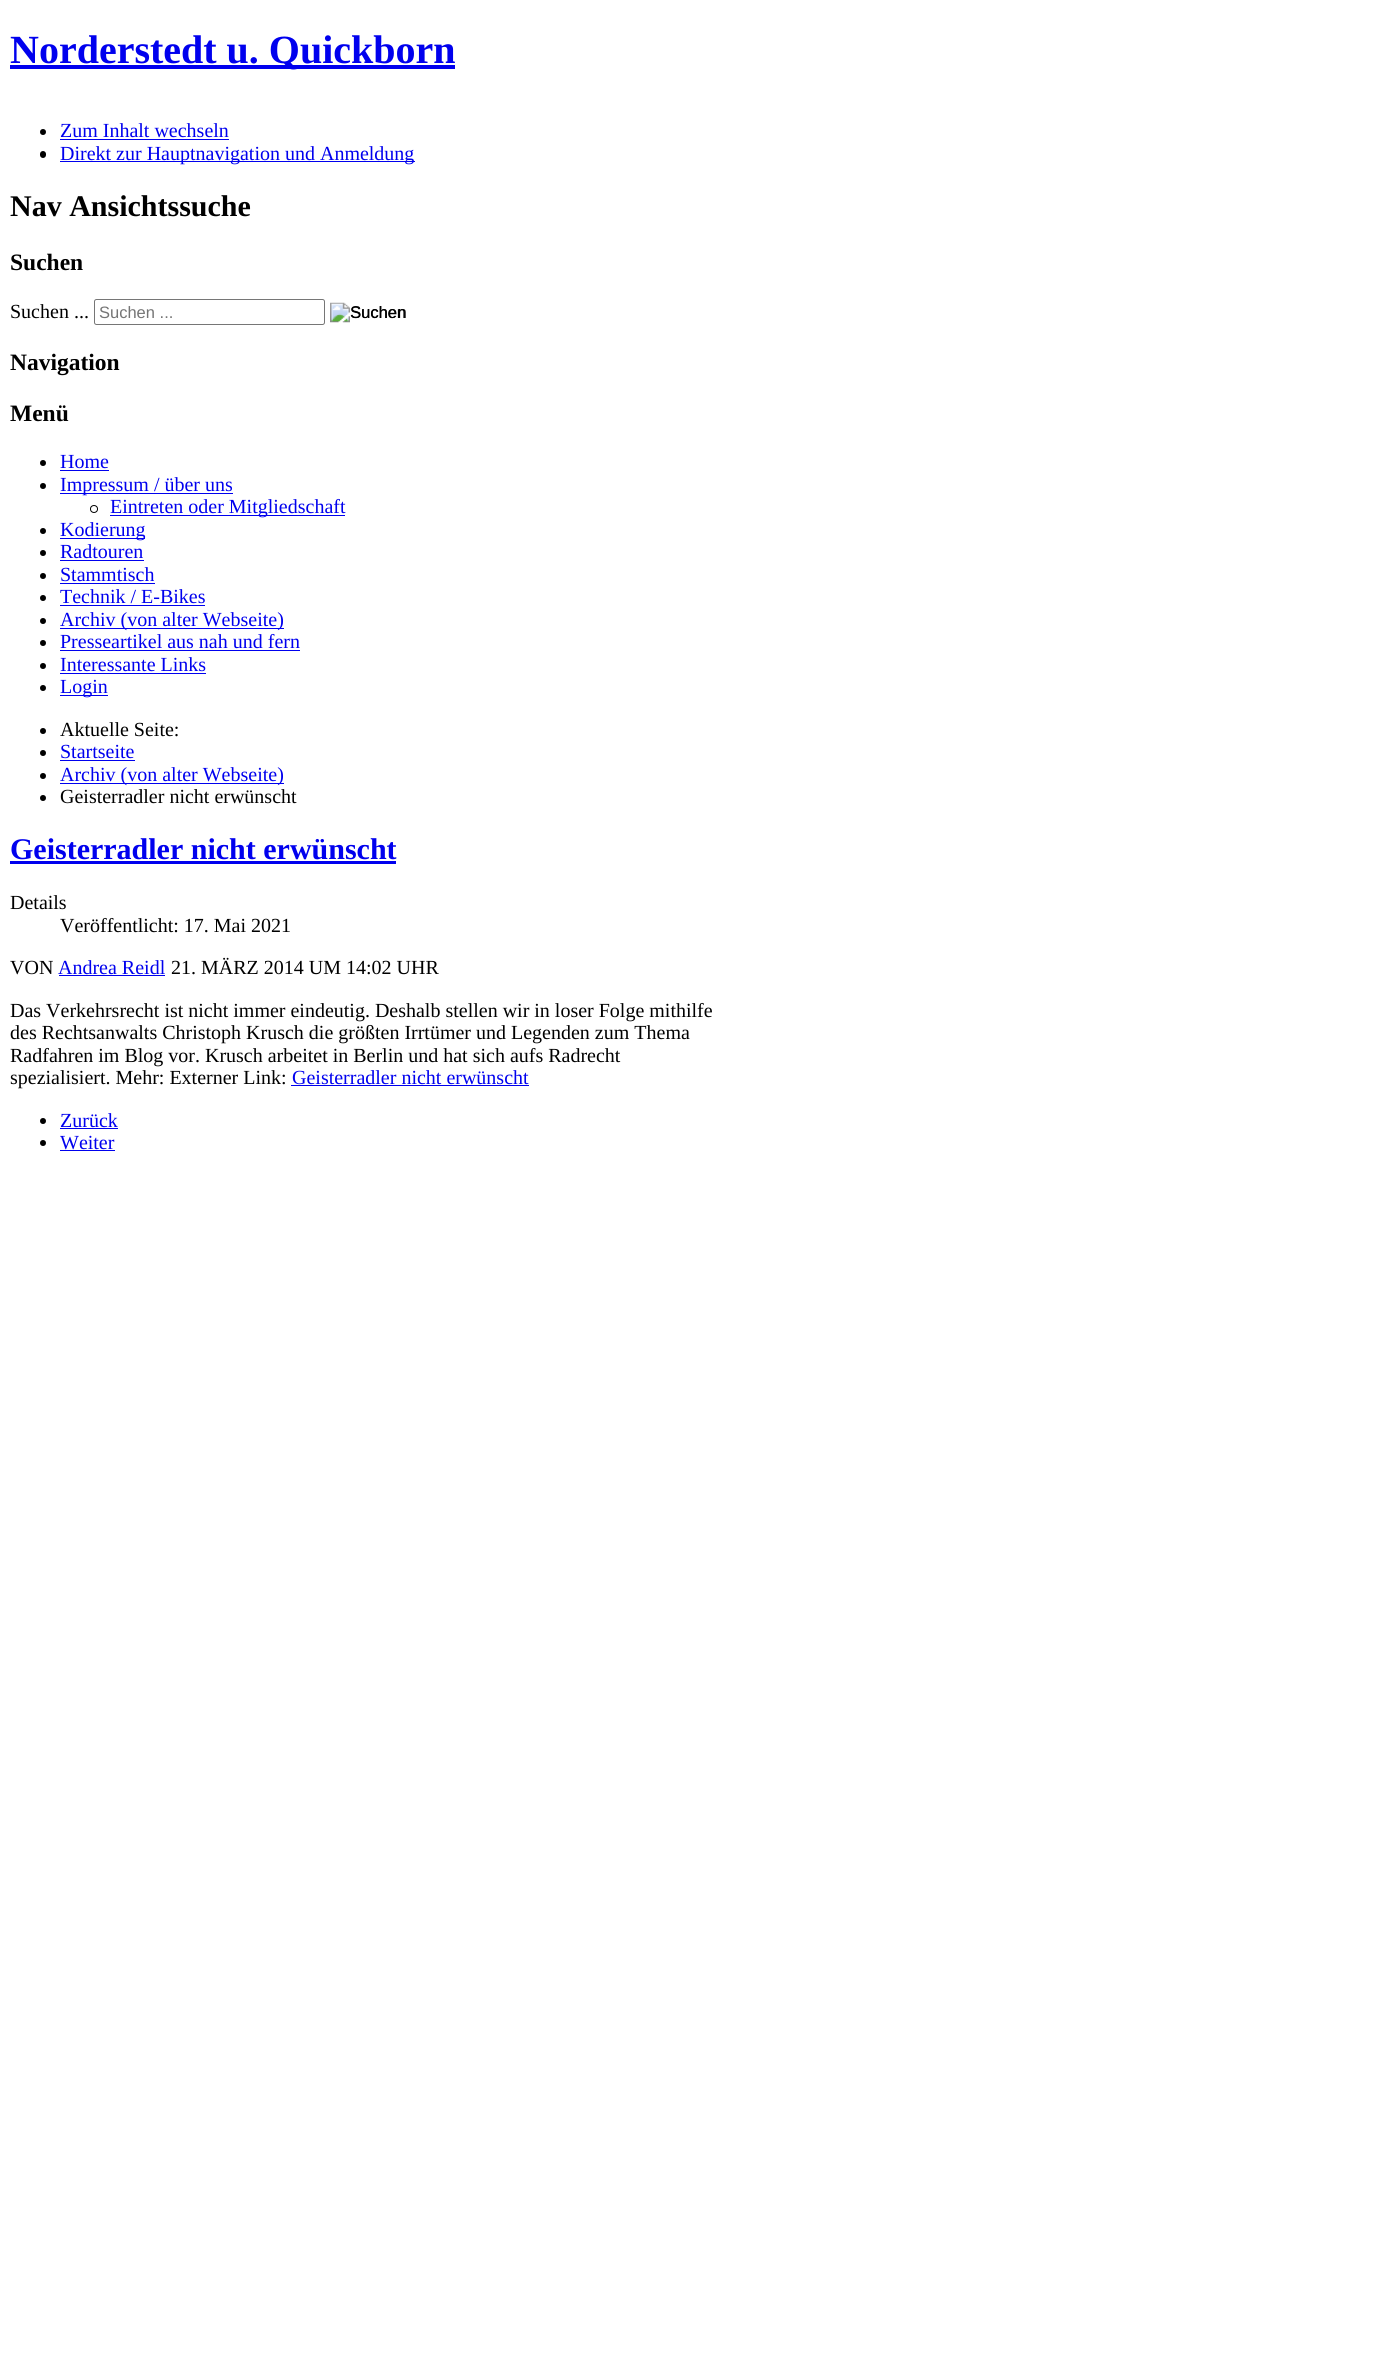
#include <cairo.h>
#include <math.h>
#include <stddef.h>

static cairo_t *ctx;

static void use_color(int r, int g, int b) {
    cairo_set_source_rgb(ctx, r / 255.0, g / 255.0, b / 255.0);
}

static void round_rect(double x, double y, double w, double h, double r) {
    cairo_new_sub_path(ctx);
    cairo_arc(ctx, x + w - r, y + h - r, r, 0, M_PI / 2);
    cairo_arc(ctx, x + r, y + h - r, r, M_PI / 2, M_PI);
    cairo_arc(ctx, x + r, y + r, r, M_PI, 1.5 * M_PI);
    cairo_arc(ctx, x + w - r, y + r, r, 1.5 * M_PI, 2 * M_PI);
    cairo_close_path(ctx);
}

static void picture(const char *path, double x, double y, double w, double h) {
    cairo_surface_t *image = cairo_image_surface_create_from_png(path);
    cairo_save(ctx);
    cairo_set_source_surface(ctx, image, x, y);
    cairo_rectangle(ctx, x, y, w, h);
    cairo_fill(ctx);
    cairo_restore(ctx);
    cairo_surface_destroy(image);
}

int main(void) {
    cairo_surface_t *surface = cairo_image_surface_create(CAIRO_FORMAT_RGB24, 1391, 2374);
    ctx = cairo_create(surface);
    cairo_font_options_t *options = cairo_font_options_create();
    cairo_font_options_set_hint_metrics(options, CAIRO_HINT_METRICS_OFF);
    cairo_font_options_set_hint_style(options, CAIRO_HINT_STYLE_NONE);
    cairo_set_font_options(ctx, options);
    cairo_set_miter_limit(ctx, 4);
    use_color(255, 255, 255);
    cairo_paint(ctx);
    use_color(0, 0, 238);
    cairo_rectangle(ctx, 10, 65, 445, 4);
    cairo_fill(ctx);
    cairo_select_font_face(ctx, "Liberation Serif", CAIRO_FONT_SLANT_NORMAL, CAIRO_FONT_WEIGHT_BOLD);
    cairo_set_font_size(ctx, 40);
    cairo_move_to(ctx, 10, 63);
    cairo_show_text(ctx, "Norderstedt u. Quickborn");
    use_color(0, 0, 0);
    cairo_new_path(ctx);
    cairo_arc(ctx, 43, 132, 3, 0, 2 * M_PI);
    cairo_fill(ctx);
    cairo_select_font_face(ctx, "Liberation Serif", CAIRO_FONT_SLANT_NORMAL, CAIRO_FONT_WEIGHT_NORMAL);
    cairo_set_font_size(ctx, 20);
    use_color(0, 0, 238);
    cairo_move_to(ctx, 60, 137);
    cairo_show_text(ctx, "Zum Inhalt wechseln");
    cairo_rectangle(ctx, 60, 139, 169, 1);
    cairo_fill(ctx);
    use_color(0, 0, 0);
    round_rect(40, 151, 6, 7, 3);
    cairo_fill(ctx);
    use_color(0, 0, 238);
    cairo_rectangle(ctx, 60, 161, 355, 1);
    cairo_fill(ctx);
    cairo_move_to(ctx, 60, 160);
    cairo_show_text(ctx, "Direkt zur Hauptnavigation und Anmeldung");
    cairo_select_font_face(ctx, "Liberation Serif", CAIRO_FONT_SLANT_NORMAL, CAIRO_FONT_WEIGHT_BOLD);
    cairo_set_font_size(ctx, 30);
    use_color(0, 0, 0);
    cairo_move_to(ctx, 10, 216);
    cairo_show_text(ctx, "Nav Ansichtssuche");
    cairo_set_font_size(ctx, 23.5);
    cairo_move_to(ctx, 10, 270);
    cairo_show_text(ctx, "Suchen");
    cairo_select_font_face(ctx, "Liberation Serif", CAIRO_FONT_SLANT_NORMAL, CAIRO_FONT_WEIGHT_NORMAL);
    cairo_set_font_size(ctx, 20);
    cairo_move_to(ctx, 10, 318);
    cairo_show_text(ctx, "Suchen ...");
    round_rect(94.5, 299.5, 230, 25, 2);
    use_color(118, 118, 118);
    cairo_set_line_width(ctx, 1);
    cairo_stroke(ctx);
    cairo_select_font_face(ctx, "Liberation Sans", CAIRO_FONT_SLANT_NORMAL, CAIRO_FONT_WEIGHT_NORMAL);
    cairo_set_font_size(ctx, 16.5);
    use_color(117, 117, 117);
    cairo_move_to(ctx, 99, 318);
    cairo_show_text(ctx, "Suchen ...");
    picture("img1.png", 330, 302, 76, 21);
    use_color(0, 0, 0);
    cairo_move_to(ctx, 350, 318);
    cairo_show_text(ctx, "Suchen");
    cairo_select_font_face(ctx, "Liberation Serif", CAIRO_FONT_SLANT_NORMAL, CAIRO_FONT_WEIGHT_BOLD);
    cairo_set_font_size(ctx, 23.5);
    cairo_move_to(ctx, 10, 370);
    cairo_show_text(ctx, "Navigation");
    cairo_move_to(ctx, 10, 421);
    cairo_show_text(ctx, "Menü");
    cairo_new_path(ctx);
    cairo_arc(ctx, 43, 463, 3, 0, 2 * M_PI);
    cairo_fill(ctx);
    cairo_select_font_face(ctx, "Liberation Serif", CAIRO_FONT_SLANT_NORMAL, CAIRO_FONT_WEIGHT_NORMAL);
    cairo_set_font_size(ctx, 20);
    use_color(0, 0, 238);
    cairo_move_to(ctx, 60, 468);
    cairo_show_text(ctx, "Home");
    cairo_rectangle(ctx, 60, 470, 49, 1);
    cairo_fill(ctx);
    use_color(0, 0, 0);
    cairo_arc(ctx, 43, 486, 3, 0, 2 * M_PI);
    cairo_fill(ctx);
    use_color(0, 0, 238);
    cairo_rectangle(ctx, 60, 493, 173, 1);
    cairo_fill(ctx);
    cairo_move_to(ctx, 60, 491);
    cairo_show_text(ctx, "Impressum / über uns");
    cairo_new_path(ctx);
    cairo_arc(ctx, 94, 509, 3.5, 0, 2 * M_PI);
    use_color(0, 0, 0);
    cairo_stroke(ctx);
    use_color(0, 0, 238);
    cairo_rectangle(ctx, 110, 515, 235, 1);
    cairo_fill(ctx);
    cairo_move_to(ctx, 110, 513);
    cairo_show_text(ctx, "Eintreten oder Mitgliedschaft");
    use_color(0, 0, 0);
    cairo_new_path(ctx);
    cairo_arc(ctx, 43, 531, 3, 0, 2 * M_PI);
    cairo_fill(ctx);
    use_color(0, 0, 238);
    cairo_rectangle(ctx, 60, 538, 85, 1);
    cairo_fill(ctx);
    cairo_move_to(ctx, 60, 536);
    cairo_show_text(ctx, "Kodierung");
    use_color(0, 0, 0);
    cairo_new_path(ctx);
    cairo_arc(ctx, 43, 553, 3, 0, 2 * M_PI);
    cairo_fill(ctx);
    use_color(0, 0, 238);
    cairo_move_to(ctx, 60, 558);
    cairo_show_text(ctx, "Radtouren");
    cairo_rectangle(ctx, 60, 560, 84, 1);
    cairo_fill(ctx);
    use_color(0, 0, 0);
    cairo_arc(ctx, 43, 576, 3, 0, 2 * M_PI);
    cairo_fill(ctx);
    use_color(0, 0, 238);
    cairo_move_to(ctx, 60, 581);
    cairo_show_text(ctx, "Stammtisch");
    cairo_rectangle(ctx, 60, 583, 95, 1);
    cairo_fill(ctx);
    use_color(0, 0, 0);
    cairo_arc(ctx, 43, 598, 3, 0, 2 * M_PI);
    cairo_fill(ctx);
    use_color(0, 0, 238);
    cairo_move_to(ctx, 60, 603);
    cairo_show_text(ctx, "Technik / E-Bikes");
    cairo_rectangle(ctx, 60, 605, 145, 1);
    cairo_fill(ctx);
    use_color(0, 0, 0);
    cairo_arc(ctx, 43, 621, 3, 0, 2 * M_PI);
    cairo_fill(ctx);
    use_color(0, 0, 238);
    cairo_rectangle(ctx, 60, 628, 224, 1);
    cairo_fill(ctx);
    cairo_move_to(ctx, 60, 626);
    cairo_show_text(ctx, "Archiv (von alter Webseite)");
    use_color(0, 0, 0);
    cairo_new_path(ctx);
    cairo_arc(ctx, 43, 643, 3, 0, 2 * M_PI);
    cairo_fill(ctx);
    use_color(0, 0, 238);
    cairo_move_to(ctx, 60, 648);
    cairo_show_text(ctx, "Presseartikel aus nah und fern");
    cairo_rectangle(ctx, 60, 650, 240, 1);
    cairo_fill(ctx);
    use_color(0, 0, 0);
    cairo_arc(ctx, 43, 666, 3, 0, 2 * M_PI);
    cairo_fill(ctx);
    use_color(0, 0, 238);
    cairo_move_to(ctx, 60, 671);
    cairo_show_text(ctx, "Interessante Links");
    cairo_rectangle(ctx, 60, 673, 146, 1);
    cairo_fill(ctx);
    use_color(0, 0, 0);
    cairo_arc(ctx, 43, 688, 3, 0, 2 * M_PI);
    cairo_fill(ctx);
    use_color(0, 0, 238);
    cairo_rectangle(ctx, 60, 695, 48, 1);
    cairo_fill(ctx);
    cairo_move_to(ctx, 60, 693);
    cairo_show_text(ctx, "Login");
    use_color(0, 0, 0);
    cairo_new_path(ctx);
    cairo_arc(ctx, 43, 731, 3, 0, 2 * M_PI);
    cairo_fill(ctx);
    cairo_move_to(ctx, 60, 736);
    cairo_show_text(ctx, "Aktuelle Seite:");
    cairo_new_path(ctx);
    cairo_arc(ctx, 43, 753, 3, 0, 2 * M_PI);
    cairo_fill(ctx);
    use_color(0, 0, 238);
    cairo_move_to(ctx, 60, 758);
    cairo_show_text(ctx, "Startseite");
    cairo_rectangle(ctx, 60, 760, 75, 1);
    cairo_fill(ctx);
    use_color(0, 0, 0);
    cairo_arc(ctx, 43, 776, 3, 0, 2 * M_PI);
    cairo_fill(ctx);
    use_color(0, 0, 238);
    cairo_rectangle(ctx, 60, 783, 224, 1);
    cairo_fill(ctx);
    cairo_move_to(ctx, 60, 781);
    cairo_show_text(ctx, "Archiv (von alter Webseite)");
    use_color(0, 0, 0);
    cairo_new_path(ctx);
    cairo_arc(ctx, 43, 798, 3, 0, 2 * M_PI);
    cairo_fill(ctx);
    cairo_move_to(ctx, 60, 803);
    cairo_show_text(ctx, "Geisterradler nicht erwünscht");
    cairo_select_font_face(ctx, "Liberation Serif", CAIRO_FONT_SLANT_NORMAL, CAIRO_FONT_WEIGHT_BOLD);
    cairo_set_font_size(ctx, 30);
    use_color(0, 0, 238);
    cairo_move_to(ctx, 10, 859);
    cairo_show_text(ctx, "Geisterradler nicht erwünscht");
    cairo_rectangle(ctx, 10, 861, 386, 3);
    cairo_fill(ctx);
    cairo_select_font_face(ctx, "Liberation Serif", CAIRO_FONT_SLANT_NORMAL, CAIRO_FONT_WEIGHT_NORMAL);
    cairo_set_font_size(ctx, 20);
    use_color(0, 0, 0);
    cairo_move_to(ctx, 10, 909);
    cairo_show_text(ctx, "Details");
    cairo_move_to(ctx, 60, 932);
    cairo_show_text(ctx, "Veröffentlicht: 17. Mai 2021");
    cairo_move_to(ctx, 10, 974);
    cairo_show_text(ctx, "VON");
    use_color(0, 0, 238);
    cairo_move_to(ctx, 58, 974);
    cairo_show_text(ctx, "Andrea Reidl");
    cairo_rectangle(ctx, 59, 975, 106, 1);
    cairo_fill(ctx);
    use_color(0, 0, 0);
    cairo_move_to(ctx, 171, 974);
    cairo_show_text(ctx, "21. MÄRZ 2014 UM 14:02 UHR");
    cairo_move_to(ctx, 10, 1017);
    cairo_show_text(ctx, "Das Verkehrsrecht ist nicht immer eindeutig. Deshalb stellen wir in loser Folge mithilfe");
    cairo_move_to(ctx, 10, 1039);
    cairo_show_text(ctx, "des Rechtsanwalts Christoph Krusch die größten Irrtümer und Legenden zum Thema");
    cairo_move_to(ctx, 10, 1062);
    cairo_show_text(ctx, "Radfahren im Blog vor. Krusch arbeitet in Berlin und hat sich aufs Radrecht");
    cairo_move_to(ctx, 10, 1084);
    cairo_show_text(ctx, "spezialisiert. Mehr: Externer Link:");
    use_color(0, 0, 238);
    cairo_move_to(ctx, 292, 1084);
    cairo_show_text(ctx, "Geisterradler nicht erwünscht");
    cairo_rectangle(ctx, 291, 1085, 238, 1);
    cairo_fill(ctx);
    use_color(0, 0, 0);
    cairo_arc(ctx, 43, 1121, 3, 0, 2 * M_PI);
    cairo_fill(ctx);
    use_color(0, 0, 238);
    cairo_move_to(ctx, 60, 1127);
    cairo_show_text(ctx, "Zurück");
    cairo_rectangle(ctx, 60, 1128, 58, 1);
    cairo_fill(ctx);
    use_color(0, 0, 0);
    cairo_arc(ctx, 43, 1143, 3, 0, 2 * M_PI);
    cairo_fill(ctx);
    use_color(0, 0, 238);
    cairo_move_to(ctx, 60, 1149);
    cairo_show_text(ctx, "Weiter");
    cairo_rectangle(ctx, 60, 1150, 55, 1);
    cairo_fill(ctx);
    cairo_surface_write_to_png(surface, "result.png");
    cairo_font_options_destroy(options);
    cairo_destroy(ctx);
    cairo_surface_destroy(surface);
    return 0;
}
